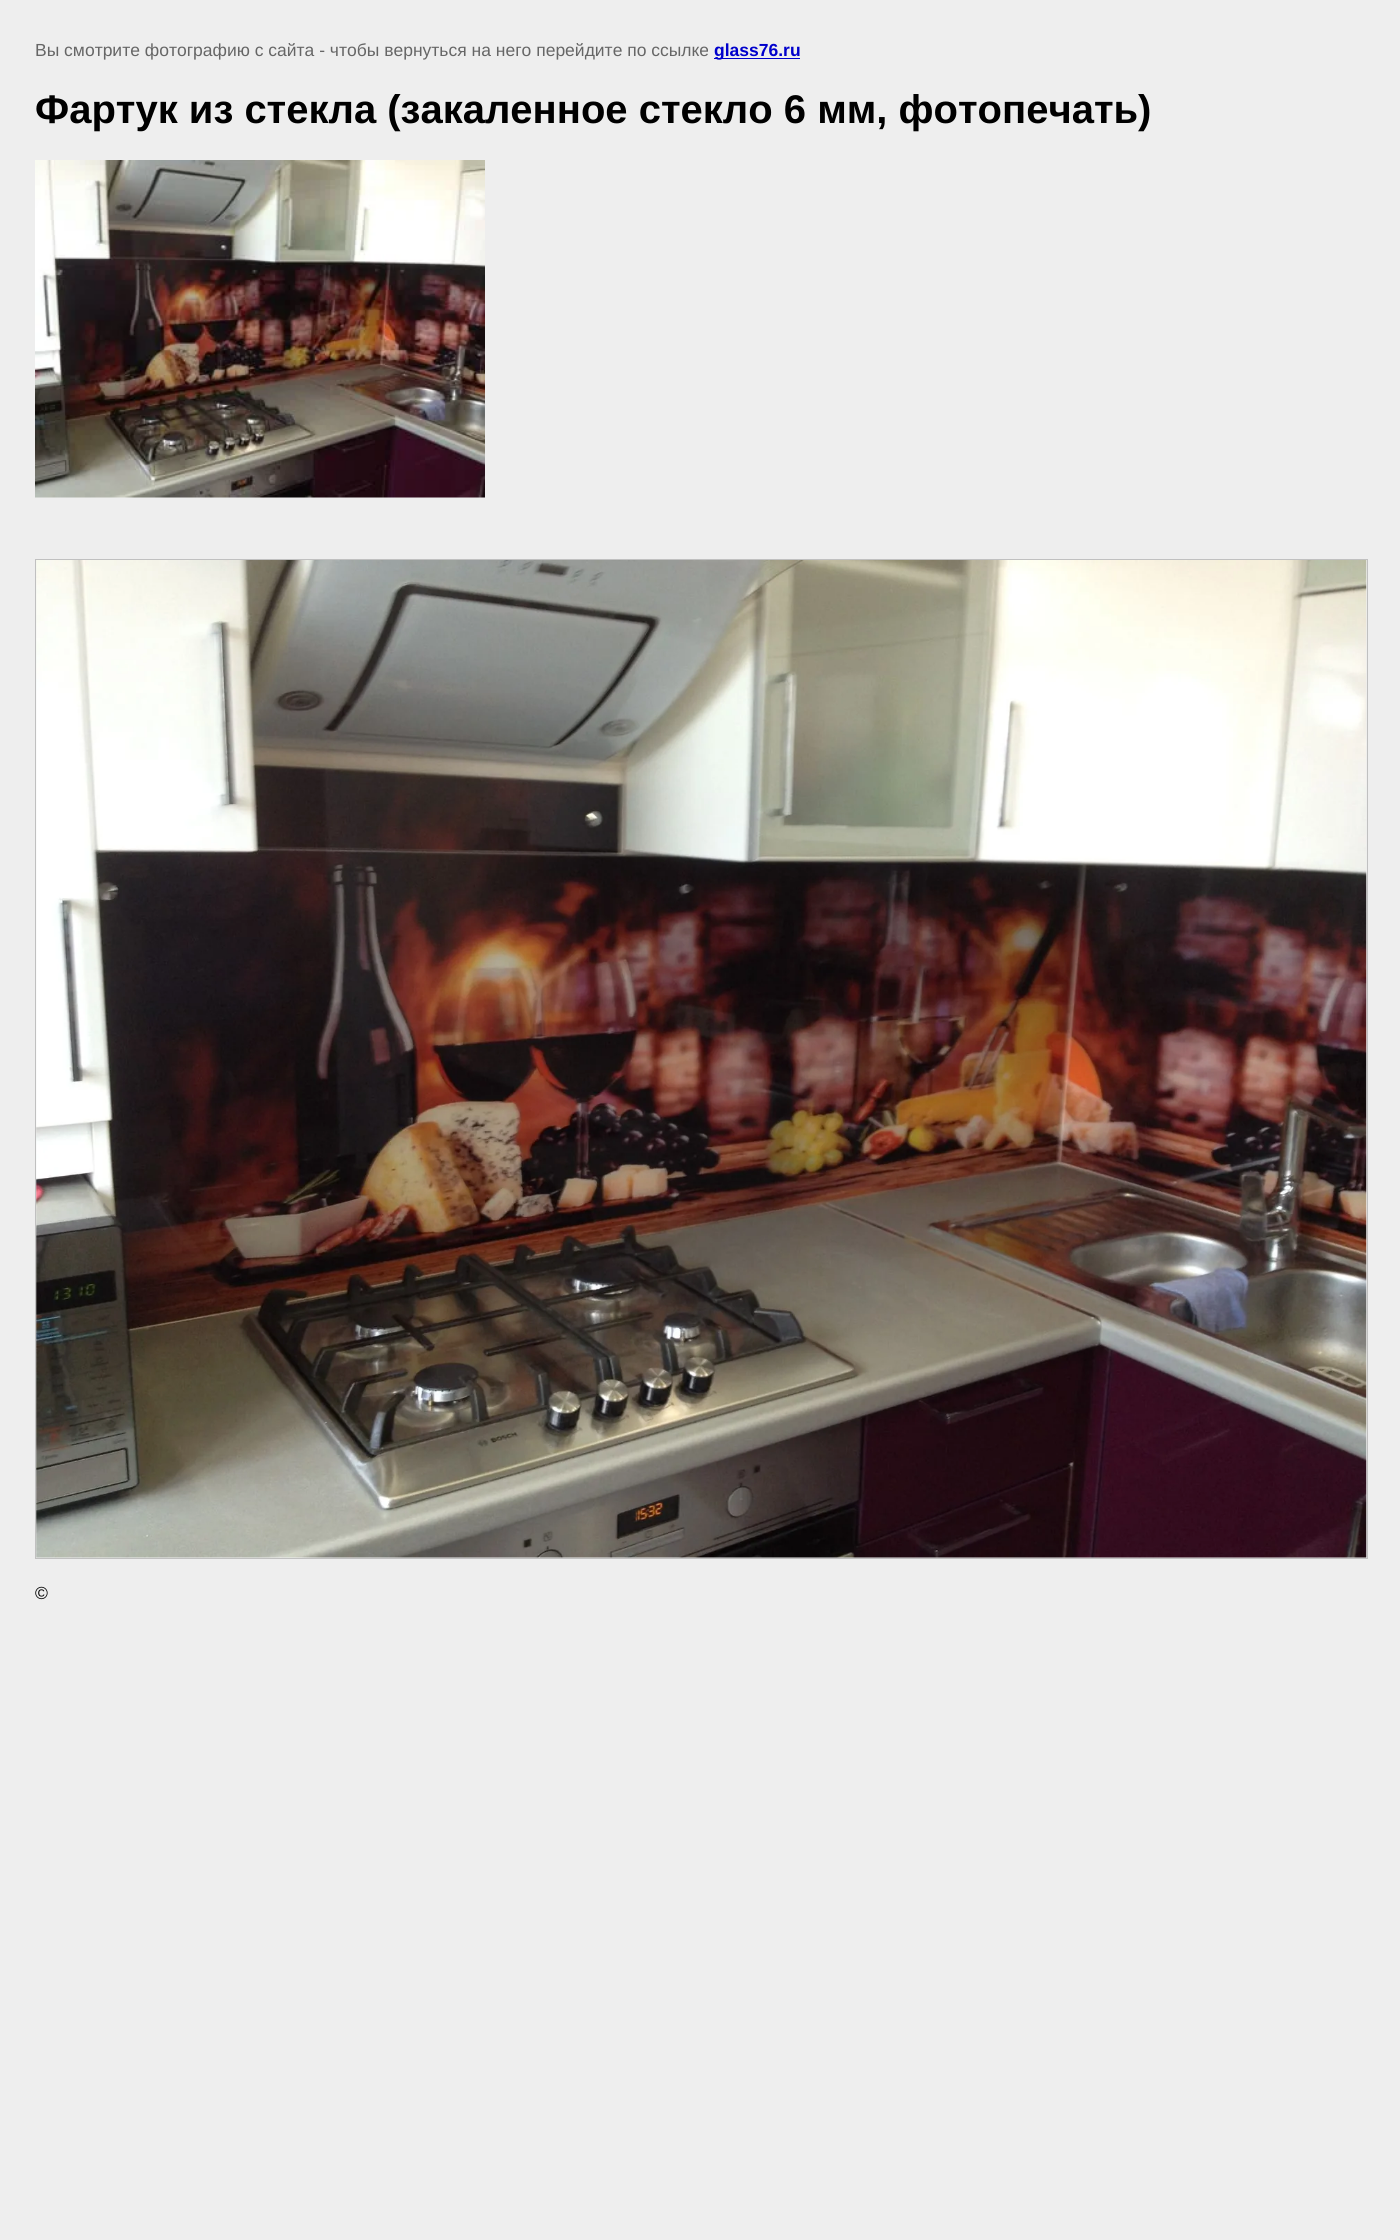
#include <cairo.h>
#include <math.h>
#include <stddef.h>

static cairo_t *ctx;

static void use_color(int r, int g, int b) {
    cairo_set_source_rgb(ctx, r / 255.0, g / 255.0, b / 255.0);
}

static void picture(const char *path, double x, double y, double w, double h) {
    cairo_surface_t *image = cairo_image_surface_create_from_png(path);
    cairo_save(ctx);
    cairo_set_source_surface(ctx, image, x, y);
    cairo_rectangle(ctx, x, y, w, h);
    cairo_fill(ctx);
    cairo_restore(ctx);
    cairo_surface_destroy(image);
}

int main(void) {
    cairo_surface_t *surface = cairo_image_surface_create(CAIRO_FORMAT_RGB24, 1400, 2240);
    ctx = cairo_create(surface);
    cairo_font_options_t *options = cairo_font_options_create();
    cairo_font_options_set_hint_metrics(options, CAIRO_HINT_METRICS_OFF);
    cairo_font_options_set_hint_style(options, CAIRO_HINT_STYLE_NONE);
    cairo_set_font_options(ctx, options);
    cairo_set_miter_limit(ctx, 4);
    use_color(238, 238, 238);
    cairo_paint(ctx);
    cairo_select_font_face(ctx, "Liberation Sans", CAIRO_FONT_SLANT_NORMAL, CAIRO_FONT_WEIGHT_NORMAL);
    cairo_set_font_size(ctx, 17.5);
    use_color(102, 102, 102);
    cairo_move_to(ctx, 35, 56);
    cairo_show_text(ctx, "Вы смотрите фотографию с сайта - чтобы вернуться на него перейдите по ссылке");
    use_color(0, 0, 204);
    cairo_rectangle(ctx, 714, 58, 86, 1);
    cairo_fill(ctx);
    cairo_select_font_face(ctx, "Liberation Sans", CAIRO_FONT_SLANT_NORMAL, CAIRO_FONT_WEIGHT_BOLD);
    cairo_move_to(ctx, 714, 56);
    cairo_show_text(ctx, "glass76.ru");
    cairo_set_font_size(ctx, 40);
    use_color(0, 0, 0);
    cairo_move_to(ctx, 35, 123);
    cairo_show_text(ctx, "Фартук из стекла (закаленное стекло 6 мм, фотопечать)");
    picture("img1.png", 35, 160, 450, 338);
    cairo_rectangle(ctx, 35.5, 559.5, 1332, 999);
    use_color(192, 192, 192);
    cairo_set_line_width(ctx, 1);
    cairo_stroke(ctx);
    picture("img2.png", 36, 560, 1331, 998);
    cairo_select_font_face(ctx, "Liberation Sans", CAIRO_FONT_SLANT_NORMAL, CAIRO_FONT_WEIGHT_NORMAL);
    cairo_set_font_size(ctx, 17.5);
    use_color(0, 0, 0);
    cairo_move_to(ctx, 35, 1599);
    cairo_show_text(ctx, "©");
    cairo_surface_write_to_png(surface, "result.png");
    cairo_font_options_destroy(options);
    cairo_destroy(ctx);
    cairo_surface_destroy(surface);
    return 0;
}
